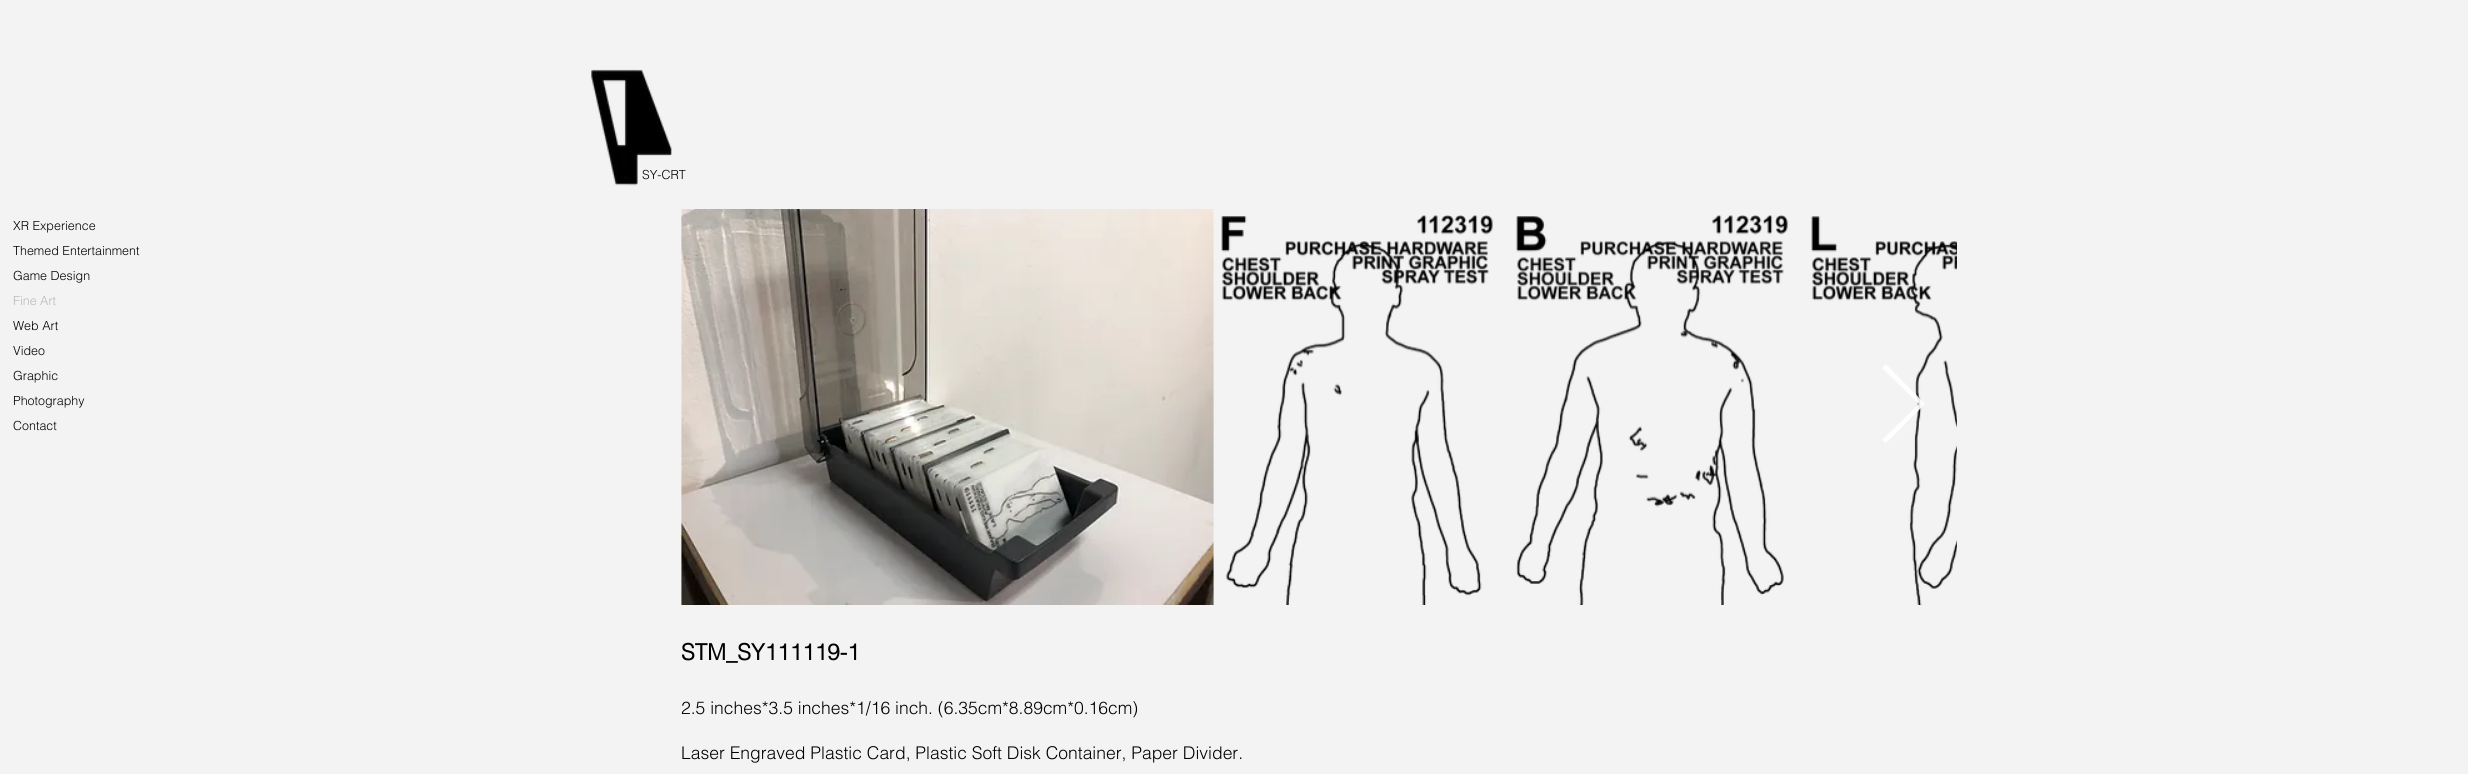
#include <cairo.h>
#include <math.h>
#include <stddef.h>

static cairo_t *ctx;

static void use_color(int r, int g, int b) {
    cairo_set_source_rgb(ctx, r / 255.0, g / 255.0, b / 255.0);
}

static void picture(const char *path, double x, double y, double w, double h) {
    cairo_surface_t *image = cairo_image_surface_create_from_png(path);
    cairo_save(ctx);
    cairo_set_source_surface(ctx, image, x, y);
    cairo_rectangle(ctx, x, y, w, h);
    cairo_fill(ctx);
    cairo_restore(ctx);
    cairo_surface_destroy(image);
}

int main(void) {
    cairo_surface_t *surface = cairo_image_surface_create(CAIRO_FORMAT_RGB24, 2468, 774);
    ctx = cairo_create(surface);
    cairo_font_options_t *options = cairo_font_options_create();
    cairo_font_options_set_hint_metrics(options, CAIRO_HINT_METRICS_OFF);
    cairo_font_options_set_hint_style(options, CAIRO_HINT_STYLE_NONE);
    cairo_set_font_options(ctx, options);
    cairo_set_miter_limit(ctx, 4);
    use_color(243, 243, 243);
    cairo_paint(ctx);
    cairo_select_font_face(ctx, "helvetica Light", CAIRO_FONT_SLANT_NORMAL, CAIRO_FONT_WEIGHT_NORMAL);
    cairo_set_font_size(ctx, 12.5);
    use_color(0, 0, 0);
    cairo_move_to(ctx, 642, 179);
    cairo_show_text(ctx, "SY-CRT");
    picture("img1.png", 591, 69, 81, 117);
    cairo_move_to(ctx, 13, 230);
    cairo_show_text(ctx, "XR Experience");
    cairo_move_to(ctx, 13, 255);
    cairo_show_text(ctx, "Themed Entertainment");
    cairo_move_to(ctx, 13, 280);
    cairo_show_text(ctx, "Game Design");
    use_color(185, 185, 185);
    cairo_move_to(ctx, 13, 305);
    cairo_show_text(ctx, "Fine Art");
    use_color(0, 0, 0);
    cairo_move_to(ctx, 13, 330);
    cairo_show_text(ctx, "Web Art");
    cairo_move_to(ctx, 13, 355);
    cairo_show_text(ctx, "Video");
    cairo_move_to(ctx, 13, 380);
    cairo_show_text(ctx, "Graphic");
    cairo_move_to(ctx, 13, 405);
    cairo_show_text(ctx, "Photography");
    cairo_move_to(ctx, 13, 430);
    cairo_show_text(ctx, "Contact");
    picture("img2.png", 681, 209, 533, 396);
    picture("img3.png", 1221, 215, 272, 390);
    picture("img4.png", 1516, 215, 272, 390);
    picture("img5.png", 1811, 216, 146, 389);
    cairo_set_source_rgba(ctx, 1, 1, 1, 0.9);
    cairo_new_path(ctx);
    cairo_move_to(ctx, 1882, 368);
    cairo_line_to(ctx, 1886, 364);
    cairo_line_to(ctx, 1925, 404);
    cairo_line_to(ctx, 1886, 443);
    cairo_line_to(ctx, 1882, 440);
    cairo_line_to(ctx, 1919, 404);
    cairo_close_path(ctx);
    cairo_fill(ctx);
    cairo_select_font_face(ctx, "helvetica", CAIRO_FONT_SLANT_NORMAL, CAIRO_FONT_WEIGHT_BOLD);
    cairo_set_font_size(ctx, 22.5);
    use_color(0, 0, 0);
    cairo_move_to(ctx, 681, 660);
    cairo_show_text(ctx, "STM_SY111119-1");
    cairo_select_font_face(ctx, "helvetica Light", CAIRO_FONT_SLANT_NORMAL, CAIRO_FONT_WEIGHT_NORMAL);
    cairo_set_font_size(ctx, 17.5);
    cairo_move_to(ctx, 681, 714);
    cairo_show_text(ctx, "2.5 inches*3.5 inches*1/16 inch. (6.35cm*8.89cm*0.16cm)");
    cairo_move_to(ctx, 681, 759);
    cairo_show_text(ctx, "Laser Engraved Plastic Card, Plastic Soft Disk Container, Paper Divider.");
    cairo_surface_write_to_png(surface, "result.png");
    cairo_font_options_destroy(options);
    cairo_destroy(ctx);
    cairo_surface_destroy(surface);
    return 0;
}
